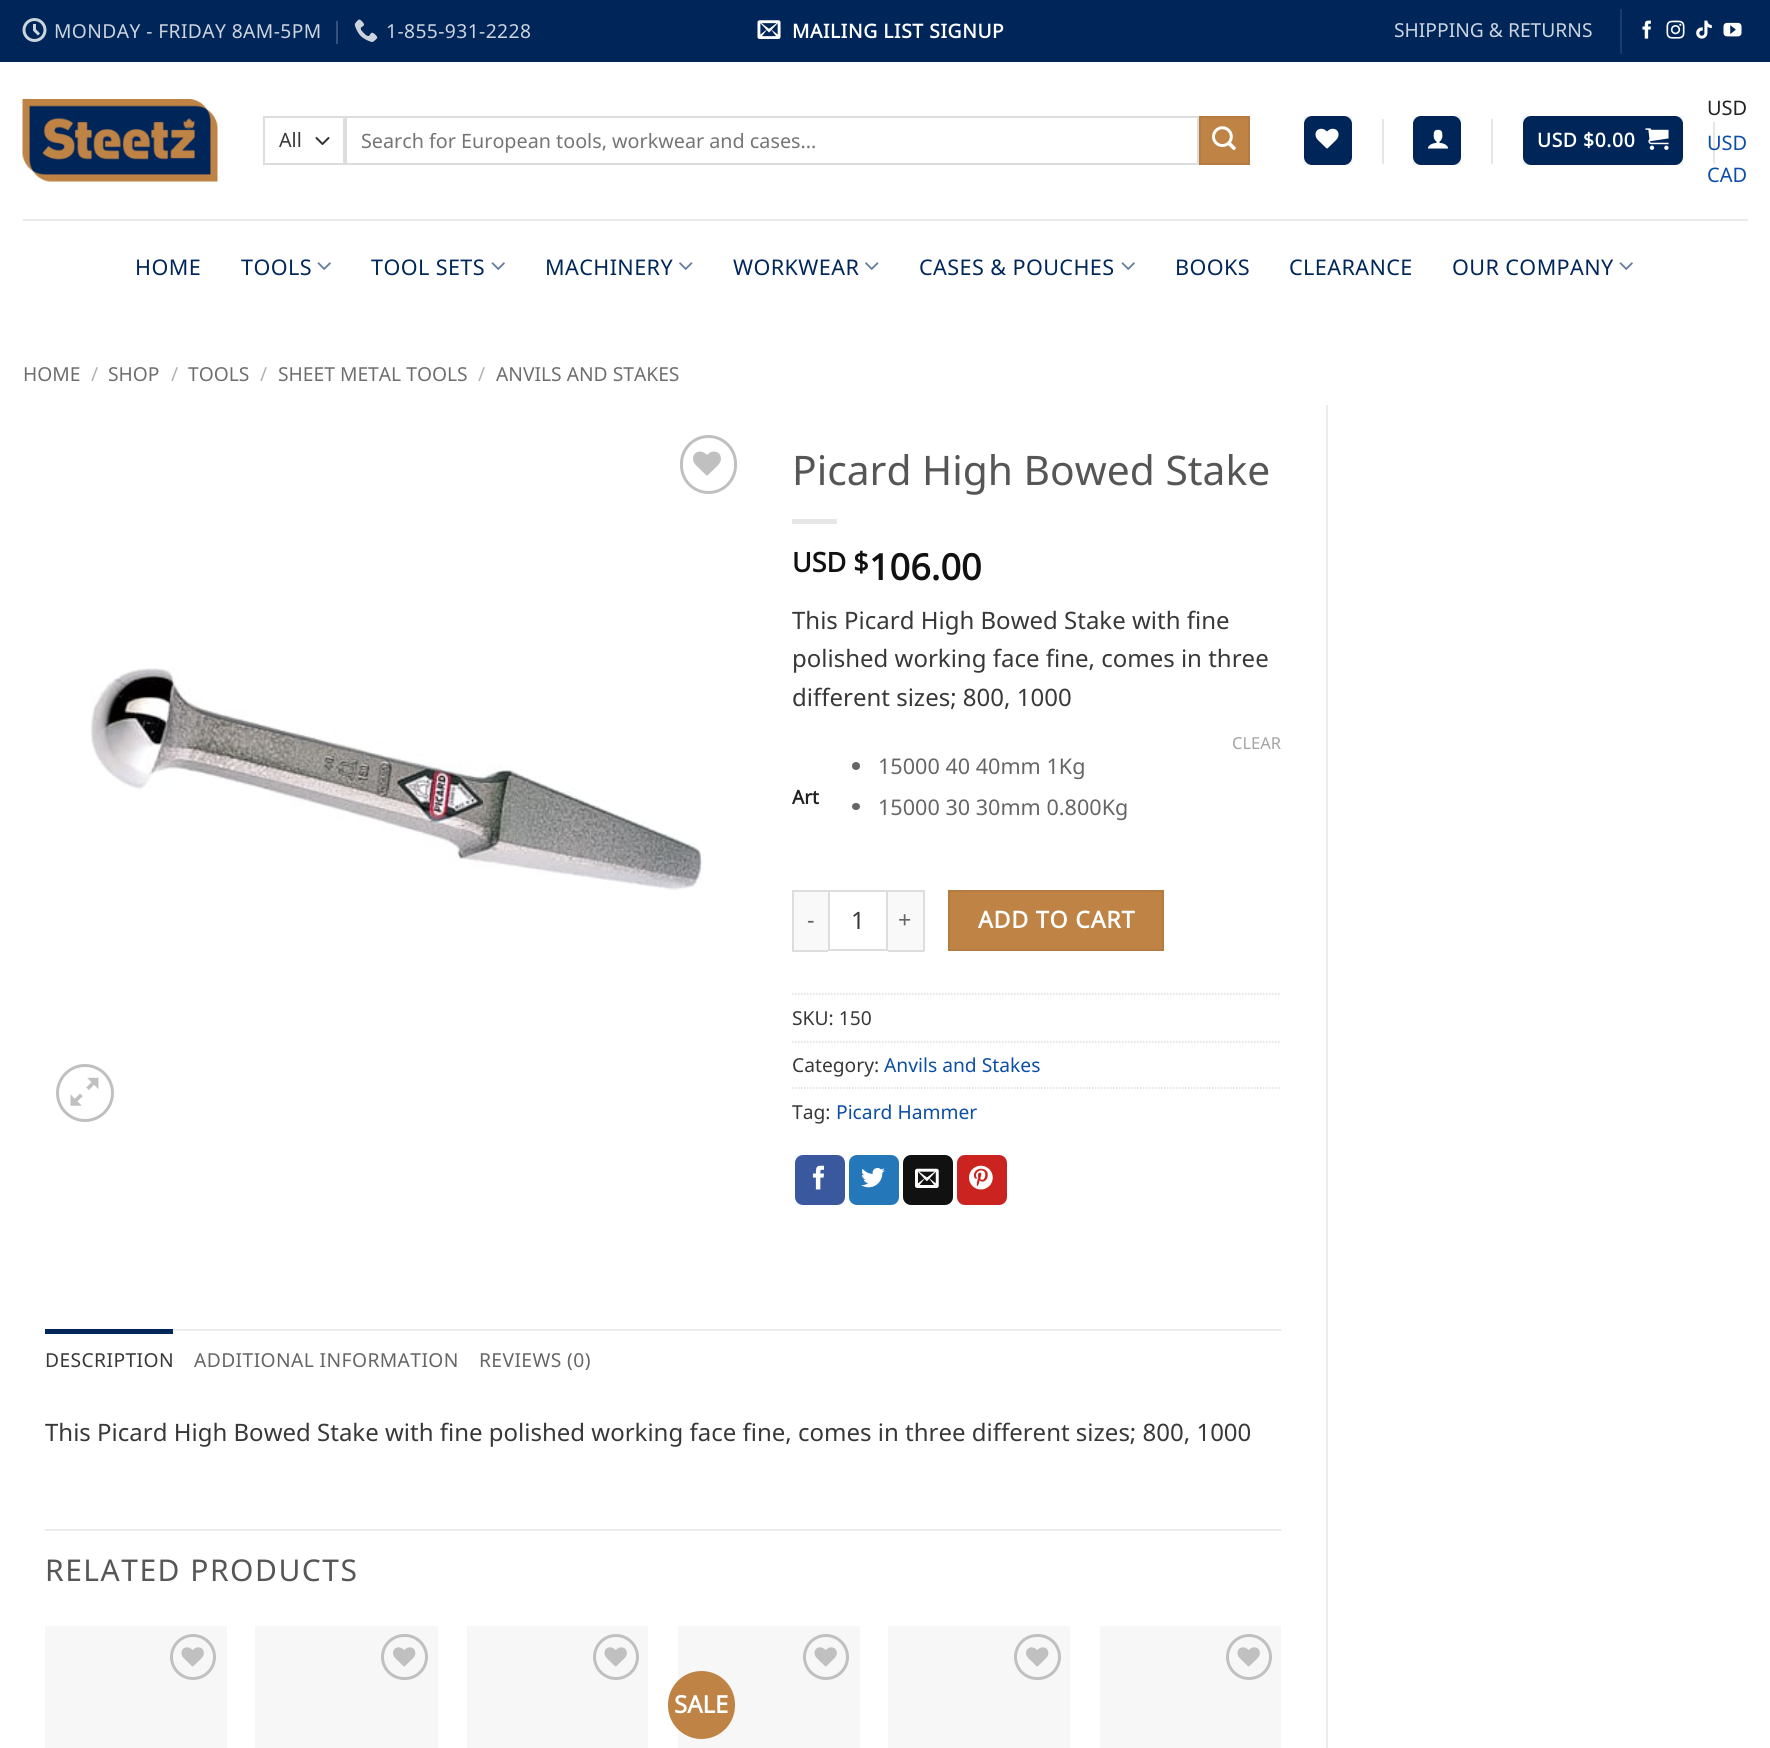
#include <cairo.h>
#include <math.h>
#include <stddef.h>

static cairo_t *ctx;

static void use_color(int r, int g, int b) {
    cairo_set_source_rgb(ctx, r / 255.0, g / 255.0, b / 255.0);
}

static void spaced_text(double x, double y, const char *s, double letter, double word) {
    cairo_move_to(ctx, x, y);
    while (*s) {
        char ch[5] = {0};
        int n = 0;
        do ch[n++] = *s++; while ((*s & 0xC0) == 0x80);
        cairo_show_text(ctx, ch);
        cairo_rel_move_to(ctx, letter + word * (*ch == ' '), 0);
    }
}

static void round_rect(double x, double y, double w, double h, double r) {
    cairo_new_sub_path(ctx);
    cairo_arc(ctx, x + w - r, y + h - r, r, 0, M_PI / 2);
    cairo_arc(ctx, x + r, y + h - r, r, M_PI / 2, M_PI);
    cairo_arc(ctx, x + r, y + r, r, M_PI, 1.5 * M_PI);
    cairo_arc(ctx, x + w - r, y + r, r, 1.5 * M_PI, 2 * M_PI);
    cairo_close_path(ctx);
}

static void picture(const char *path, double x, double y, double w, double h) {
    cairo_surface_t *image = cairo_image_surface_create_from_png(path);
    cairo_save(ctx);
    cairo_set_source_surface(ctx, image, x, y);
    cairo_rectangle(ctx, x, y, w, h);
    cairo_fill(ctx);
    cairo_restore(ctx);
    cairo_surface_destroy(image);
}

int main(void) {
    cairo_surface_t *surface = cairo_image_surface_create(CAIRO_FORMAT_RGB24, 1770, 1748);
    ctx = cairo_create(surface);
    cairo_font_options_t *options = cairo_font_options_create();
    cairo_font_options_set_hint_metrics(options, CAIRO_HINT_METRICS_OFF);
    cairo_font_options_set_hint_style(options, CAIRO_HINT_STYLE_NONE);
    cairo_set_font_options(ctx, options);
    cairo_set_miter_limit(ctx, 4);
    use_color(255, 255, 255);
    cairo_paint(ctx);
    use_color(0, 38, 89);
    cairo_rectangle(ctx, 0, 0, 1770, 62);
    cairo_fill(ctx);
    picture("img1.png", 22, 18, 25, 24);
    cairo_select_font_face(ctx, "Noto Sans", CAIRO_FONT_SLANT_NORMAL, CAIRO_FONT_WEIGHT_NORMAL);
    cairo_set_font_size(ctx, 19.25);
    use_color(204, 212, 222);
    spaced_text(54, 38, "MONDAY - FRIDAY 8AM-5PM", 0.4, 0);
    use_color(51, 81, 122);
    cairo_rectangle(ctx, 336, 21, 2, 23);
    cairo_fill(ctx);
    picture("img2.png", 354, 19, 24, 23);
    use_color(204, 212, 222);
    spaced_text(386, 38, "1-855-931-2228", 0.4, 0);
    round_rect(745, 7, 280, 48, 24);
    use_color(0, 36, 85);
    cairo_stroke(ctx);
    picture("img3.png", 757, 20, 24, 19);
    cairo_select_font_face(ctx, "Noto Sans", CAIRO_FONT_SLANT_NORMAL, CAIRO_FONT_WEIGHT_BOLD);
    use_color(255, 255, 255);
    spaced_text(792, 38, "MAILING LIST SIGNUP", 0.6, 0);
    cairo_select_font_face(ctx, "Noto Sans", CAIRO_FONT_SLANT_NORMAL, CAIRO_FONT_WEIGHT_NORMAL);
    use_color(204, 212, 222);
    cairo_move_to(ctx, 1394, 37);
    cairo_show_text(ctx, "SHIPPING & RETURNS");
    use_color(26, 60, 106);
    cairo_rectangle(ctx, 1620, 9, 2, 45);
    cairo_fill(ctx);
    picture("img4.png", 1642, 20, 9, 19);
    picture("img5.png", 1666, 20, 19, 19);
    picture("img6.png", 1696, 20, 16, 19);
    picture("img7.png", 1723, 22, 19, 15);
    picture("img8.png", 22, 99, 196, 83);
    cairo_new_path(ctx);
    cairo_move_to(ctx, 316.5, 138);
    cairo_line_to(ctx, 322.5, 144);
    cairo_line_to(ctx, 328.5, 138);
    use_color(51, 51, 51);
    cairo_set_line_cap(ctx, CAIRO_LINE_CAP_ROUND);
    cairo_set_line_join(ctx, CAIRO_LINE_JOIN_ROUND);
    cairo_stroke(ctx);
    cairo_rectangle(ctx, 264, 117, 80, 47);
    use_color(221, 221, 221);
    cairo_set_line_cap(ctx, CAIRO_LINE_CAP_BUTT);
    cairo_set_line_join(ctx, CAIRO_LINE_JOIN_MITER);
    cairo_stroke(ctx);
    cairo_set_font_size(ctx, 19.75);
    use_color(56, 56, 56);
    cairo_move_to(ctx, 279, 147);
    cairo_show_text(ctx, "All");
    cairo_rectangle(ctx, 346, 117, 852, 47);
    use_color(221, 221, 221);
    cairo_stroke(ctx);
    use_color(117, 117, 117);
    cairo_move_to(ctx, 361, 148);
    cairo_show_text(ctx, "Search for European tools, workwear and cases...");
    use_color(190, 131, 69);
    cairo_rectangle(ctx, 1200, 117, 49, 47);
    cairo_fill_preserve(ctx);
    use_color(181, 124, 66);
    cairo_stroke(ctx);
    picture("img9.png", 1212, 126, 24, 24);
    use_color(0, 38, 89);
    round_rect(1304, 116, 48, 49, 8);
    cairo_fill(ctx);
    cairo_rectangle(ctx, 1305, 117, 46, 47);
    cairo_set_source_rgba(ctx, 0, 0, 0, 0.05);
    cairo_stroke(ctx);
    picture("img10.png", 1315, 128, 24, 21);
    use_color(230, 230, 230);
    cairo_rectangle(ctx, 1382, 119, 2, 45);
    cairo_fill(ctx);
    use_color(0, 38, 89);
    round_rect(1413, 116, 48, 49, 8);
    cairo_fill(ctx);
    cairo_rectangle(ctx, 1414, 117, 46, 47);
    cairo_set_source_rgba(ctx, 0, 0, 0, 0.05);
    cairo_stroke(ctx);
    picture("img11.png", 1428, 129, 21, 20);
    use_color(230, 230, 230);
    cairo_rectangle(ctx, 1491, 119, 2, 45);
    cairo_fill(ctx);
    cairo_set_font_size(ctx, 20);
    use_color(34, 34, 34);
    cairo_move_to(ctx, 1707, 115);
    cairo_show_text(ctx, "USD");
    use_color(230, 230, 230);
    cairo_rectangle(ctx, 1713, 119, 2, 45);
    cairo_fill(ctx);
    use_color(255, 255, 255);
    cairo_rectangle(ctx, 1713, 119, 2, 3);
    cairo_fill(ctx);
    use_color(11, 78, 166);
    cairo_move_to(ctx, 1707, 150);
    cairo_show_text(ctx, "USD");
    cairo_move_to(ctx, 1707, 182);
    cairo_show_text(ctx, "CAD");
    use_color(0, 38, 89);
    round_rect(1523, 116, 160, 49, 8);
    cairo_fill(ctx);
    cairo_rectangle(ctx, 1524, 117, 158, 47);
    cairo_set_source_rgba(ctx, 0, 0, 0, 0.05);
    cairo_stroke(ctx);
    cairo_select_font_face(ctx, "Noto Sans", CAIRO_FONT_SLANT_NORMAL, CAIRO_FONT_WEIGHT_BOLD);
    cairo_set_font_size(ctx, 19.25);
    use_color(255, 255, 255);
    spaced_text(1537, 147, "USD $0.00", 0.6, 0);
    picture("img12.png", 1645, 128, 24, 22);
    use_color(235, 235, 235);
    cairo_rectangle(ctx, 23, 219, 1725, 2);
    cairo_fill(ctx);
    cairo_select_font_face(ctx, "Noto Sans", CAIRO_FONT_SLANT_NORMAL, CAIRO_FONT_WEIGHT_NORMAL);
    cairo_set_font_size(ctx, 21.6);
    use_color(0, 38, 90);
    spaced_text(135, 275, "HOME", 0.4, 0);
    spaced_text(241, 275, "TOOLS", 0.4, 0);
    picture("img13.png", 317, 262, 14, 8);
    spaced_text(371, 275, "TOOL SETS", 0.4, 0);
    picture("img13.png", 491, 262, 14, 8);
    spaced_text(545, 275, "MACHINERY", 0.4, 0);
    picture("img14.png", 679, 262, 14, 8);
    spaced_text(733, 275, "WORKWEAR", 0.4, 0);
    picture("img14.png", 865, 262, 14, 8);
    spaced_text(919, 275, "CASES & POUCHES", 0.4, 0);
    picture("img13.png", 1121, 262, 14, 8);
    spaced_text(1175, 275, "BOOKS", 0.4, 0);
    spaced_text(1289, 275, "CLEARANCE", 0.4, 0);
    spaced_text(1452, 275, "OUR COMPANY", 0.4, 0);
    picture("img13.png", 1619, 262, 14, 8);
    cairo_set_font_size(ctx, 19.25);
    use_color(110, 110, 110);
    cairo_move_to(ctx, 23, 381);
    cairo_show_text(ctx, "HOME");
    use_color(178, 178, 178);
    cairo_move_to(ctx, 91, 381);
    cairo_show_text(ctx, "/");
    use_color(110, 110, 110);
    cairo_move_to(ctx, 108, 381);
    cairo_show_text(ctx, "SHOP");
    use_color(178, 178, 178);
    cairo_move_to(ctx, 171, 381);
    cairo_show_text(ctx, "/");
    use_color(110, 110, 110);
    cairo_move_to(ctx, 188, 381);
    cairo_show_text(ctx, "TOOLS");
    use_color(178, 178, 178);
    cairo_move_to(ctx, 260, 381);
    cairo_show_text(ctx, "/");
    use_color(110, 110, 110);
    cairo_move_to(ctx, 278, 381);
    cairo_show_text(ctx, "SHEET METAL TOOLS");
    use_color(178, 178, 178);
    cairo_move_to(ctx, 478, 381);
    cairo_show_text(ctx, "/");
    use_color(110, 110, 110);
    cairo_move_to(ctx, 496, 381);
    cairo_show_text(ctx, "ANVILS AND STAKES");
    use_color(236, 236, 236);
    cairo_rectangle(ctx, 1326, 405, 2, 1343);
    cairo_fill(ctx);
    round_rect(681.5, 436.5, 54, 56, 27);
    use_color(192, 192, 192);
    cairo_set_line_width(ctx, 3);
    cairo_stroke(ctx);
    picture("img15.png", 693, 451, 28, 25);
    picture("img16.png", 90, 668, 613, 223);
    cairo_arc(ctx, 85, 1093, 27.5, 0, 2 * M_PI);
    cairo_stroke(ctx);
    picture("img17.png", 70, 1077, 29, 29);
    cairo_set_font_size(ctx, 40.75);
    use_color(86, 86, 86);
    cairo_move_to(ctx, 792, 485);
    cairo_show_text(ctx, "Picard High Bowed Stake");
    use_color(230, 230, 230);
    cairo_rectangle(ctx, 792, 519, 45, 5);
    cairo_fill(ctx);
    cairo_select_font_face(ctx, "Noto Sans", CAIRO_FONT_SLANT_NORMAL, CAIRO_FONT_WEIGHT_BOLD);
    cairo_set_font_size(ctx, 27);
    use_color(17, 17, 17);
    cairo_move_to(ctx, 792, 572);
    cairo_show_text(ctx, "USD $");
    cairo_set_font_size(ctx, 36);
    cairo_move_to(ctx, 869, 580);
    cairo_show_text(ctx, "106.00");
    cairo_select_font_face(ctx, "Noto Sans", CAIRO_FONT_SLANT_NORMAL, CAIRO_FONT_WEIGHT_NORMAL);
    cairo_set_font_size(ctx, 24);
    use_color(56, 56, 56);
    cairo_move_to(ctx, 792, 629);
    cairo_show_text(ctx, "This Picard High Bowed Stake with fine");
    cairo_move_to(ctx, 792, 667);
    cairo_show_text(ctx, "polished working face fine, comes in three");
    cairo_move_to(ctx, 792, 706);
    cairo_show_text(ctx, "different sizes; 800, 1000");
    cairo_select_font_face(ctx, "Noto Sans", CAIRO_FONT_SLANT_NORMAL, CAIRO_FONT_WEIGHT_BOLD);
    cairo_set_font_size(ctx, 19);
    use_color(34, 34, 34);
    cairo_move_to(ctx, 792, 804);
    cairo_show_text(ctx, "Art");
    cairo_select_font_face(ctx, "Noto Sans", CAIRO_FONT_SLANT_NORMAL, CAIRO_FONT_WEIGHT_NORMAL);
    cairo_set_font_size(ctx, 16.5);
    use_color(163, 163, 163);
    cairo_move_to(ctx, 1232, 749);
    cairo_show_text(ctx, "CLEAR");
    use_color(102, 102, 102);
    cairo_new_path(ctx);
    cairo_arc(ctx, 856, 766, 4, 0, 2 * M_PI);
    cairo_fill(ctx);
    cairo_set_font_size(ctx, 21.6);
    cairo_move_to(ctx, 878, 774);
    cairo_show_text(ctx, "15000 40 40mm 1Kg");
    round_rect(852, 803, 8, 7, 3.5);
    cairo_fill(ctx);
    cairo_move_to(ctx, 878, 815);
    cairo_show_text(ctx, "15000 30 30mm 0.800Kg");
    use_color(249, 249, 249);
    cairo_rectangle(ctx, 794, 892, 34, 58);
    cairo_fill(ctx);
    use_color(221, 221, 221);
    cairo_rectangle(ctx, 792, 890, 36, 2);
    cairo_fill(ctx);
    cairo_rectangle(ctx, 792, 950, 36, 2);
    cairo_fill(ctx);
    cairo_rectangle(ctx, 792, 890, 2, 61);
    cairo_fill(ctx);
    cairo_set_font_size(ctx, 23.25);
    use_color(102, 102, 102);
    spaced_text(807, 928, "-", 0.75, 0);
    cairo_rectangle(ctx, 829, 891, 58, 59);
    use_color(221, 221, 221);
    cairo_set_line_width(ctx, 2);
    cairo_stroke(ctx);
    cairo_set_font_size(ctx, 24);
    use_color(56, 56, 56);
    cairo_move_to(ctx, 851, 929);
    cairo_show_text(ctx, "1");
    use_color(249, 249, 249);
    cairo_rectangle(ctx, 888, 892, 35, 58);
    cairo_fill(ctx);
    use_color(221, 221, 221);
    cairo_rectangle(ctx, 888, 890, 36, 2);
    cairo_fill(ctx);
    cairo_rectangle(ctx, 923, 890, 2, 61);
    cairo_fill(ctx);
    cairo_rectangle(ctx, 888, 950, 36, 2);
    cairo_fill(ctx);
    cairo_set_font_size(ctx, 23.25);
    use_color(102, 102, 102);
    spaced_text(898, 928, "+", 0.75, 0);
    use_color(190, 131, 69);
    cairo_rectangle(ctx, 949, 891, 214, 59);
    cairo_fill_preserve(ctx);
    use_color(181, 124, 66);
    cairo_stroke(ctx);
    cairo_select_font_face(ctx, "Noto Sans", CAIRO_FONT_SLANT_NORMAL, CAIRO_FONT_WEIGHT_BOLD);
    use_color(255, 255, 255);
    spaced_text(978, 928, "ADD TO CART", 0.75, 0);
    cairo_new_path(ctx);
    cairo_move_to(ctx, 792, 994);
    cairo_line_to(ctx, 1281, 994);
    use_color(221, 221, 221);
    cairo_set_line_width(ctx, 1.5);
    cairo_set_dash(ctx, (double[]){1.5, 1.5}, 2, 0);
    cairo_stroke(ctx);
    cairo_select_font_face(ctx, "Noto Sans", CAIRO_FONT_SLANT_NORMAL, CAIRO_FONT_WEIGHT_NORMAL);
    cairo_set_font_size(ctx, 19.25);
    use_color(56, 56, 56);
    cairo_move_to(ctx, 792, 1025);
    cairo_show_text(ctx, "SKU: 150");
    cairo_new_path(ctx);
    cairo_move_to(ctx, 792, 1042);
    cairo_line_to(ctx, 1281, 1042);
    use_color(221, 221, 221);
    cairo_stroke(ctx);
    use_color(56, 56, 56);
    cairo_move_to(ctx, 792, 1072);
    cairo_show_text(ctx, "Category:");
    use_color(11, 78, 166);
    cairo_move_to(ctx, 884, 1072);
    cairo_show_text(ctx, "Anvils and Stakes");
    cairo_new_path(ctx);
    cairo_move_to(ctx, 792, 1088);
    cairo_line_to(ctx, 1281, 1088);
    use_color(221, 221, 221);
    cairo_stroke(ctx);
    use_color(56, 56, 56);
    cairo_move_to(ctx, 792, 1119);
    cairo_show_text(ctx, "Tag:");
    use_color(11, 78, 166);
    cairo_move_to(ctx, 836, 1119);
    cairo_show_text(ctx, "Picard Hammer");
    use_color(58, 88, 157);
    round_rect(796, 1156, 48, 48, 7);
    cairo_fill_preserve(ctx);
    cairo_set_line_width(ctx, 2);
    cairo_set_dash(ctx, NULL, 0, 0);
    cairo_stroke(ctx);
    picture("img18.png", 812, 1165, 12, 25);
    use_color(36, 120, 186);
    round_rect(850, 1156, 48, 48, 7);
    cairo_fill_preserve(ctx);
    cairo_stroke(ctx);
    picture("img19.png", 861, 1168, 24, 20);
    use_color(17, 17, 17);
    round_rect(904, 1156, 48, 48, 7);
    cairo_fill_preserve(ctx);
    cairo_stroke(ctx);
    picture("img20.png", 915, 1168, 24, 20);
    use_color(203, 35, 32);
    round_rect(958, 1156, 48, 48, 7);
    cairo_fill_preserve(ctx);
    cairo_stroke(ctx);
    picture("img21.png", 969, 1165, 24, 25);
    use_color(236, 236, 236);
    cairo_rectangle(ctx, 173, 1329, 1108, 2);
    cairo_fill(ctx);
    use_color(0, 38, 89);
    cairo_rectangle(ctx, 45, 1329, 128, 5);
    cairo_fill(ctx);
    use_color(56, 56, 56);
    spaced_text(45, 1367, "DESCRIPTION", 0.4, 0);
    use_color(102, 102, 102);
    spaced_text(194, 1367, "ADDITIONAL INFORMATION", 0.4, 0);
    spaced_text(479, 1367, "REVIEWS (0)", 0.4, 0);
    cairo_set_font_size(ctx, 24);
    use_color(56, 56, 56);
    cairo_move_to(ctx, 45, 1441);
    cairo_show_text(ctx, "This Picard High Bowed Stake with fine polished working face fine, comes in three different sizes; 800, 1000");
    use_color(236, 236, 236);
    cairo_rectangle(ctx, 45, 1529, 1236, 2);
    cairo_fill(ctx);
    cairo_set_font_size(ctx, 30);
    use_color(86, 86, 86);
    spaced_text(45, 1581, "RELATED PRODUCTS", 1.5, 0);
    use_color(247, 247, 247);
    cairo_rectangle(ctx, 45, 1626, 182, 122);
    cairo_fill(ctx);
    cairo_arc(ctx, 193, 1657, 21.5, 0, 2 * M_PI);
    use_color(192, 192, 192);
    cairo_set_line_width(ctx, 3);
    cairo_stroke(ctx);
    picture("img22.png", 181, 1647, 23, 20);
    use_color(247, 247, 247);
    cairo_rectangle(ctx, 255, 1626, 183, 122);
    cairo_fill(ctx);
    round_rect(382.5, 1635.5, 44, 43, 21.5);
    use_color(192, 192, 192);
    cairo_stroke(ctx);
    picture("img23.png", 393, 1647, 23, 20);
    use_color(247, 247, 247);
    cairo_rectangle(ctx, 467, 1626, 181, 122);
    cairo_fill(ctx);
    cairo_arc(ctx, 616, 1657, 21.5, 0, 2 * M_PI);
    use_color(192, 192, 192);
    cairo_stroke(ctx);
    picture("img22.png", 604, 1647, 23, 20);
    use_color(247, 247, 247);
    cairo_rectangle(ctx, 678, 1626, 182, 122);
    cairo_fill(ctx);
    cairo_arc(ctx, 826, 1657, 21.5, 0, 2 * M_PI);
    use_color(192, 192, 192);
    cairo_stroke(ctx);
    picture("img22.png", 814, 1647, 23, 20);
    use_color(190, 131, 69);
    round_rect(668, 1671, 67, 68, 33.5);
    cairo_fill(ctx);
    cairo_select_font_face(ctx, "Noto Sans", CAIRO_FONT_SLANT_NORMAL, CAIRO_FONT_WEIGHT_BOLD);
    cairo_set_font_size(ctx, 24);
    use_color(255, 255, 255);
    cairo_move_to(ctx, 674, 1713);
    cairo_show_text(ctx, "SALE");
    use_color(247, 247, 247);
    cairo_rectangle(ctx, 888, 1626, 182, 122);
    cairo_fill(ctx);
    round_rect(1015.5, 1635.5, 44, 43, 21.5);
    use_color(192, 192, 192);
    cairo_stroke(ctx);
    picture("img23.png", 1026, 1647, 23, 20);
    use_color(247, 247, 247);
    cairo_rectangle(ctx, 1100, 1626, 181, 122);
    cairo_fill(ctx);
    cairo_arc(ctx, 1249, 1657, 21.5, 0, 2 * M_PI);
    use_color(192, 192, 192);
    cairo_stroke(ctx);
    picture("img22.png", 1237, 1647, 23, 20);
    cairo_surface_write_to_png(surface, "result.png");
    cairo_font_options_destroy(options);
    cairo_destroy(ctx);
    cairo_surface_destroy(surface);
    return 0;
}
